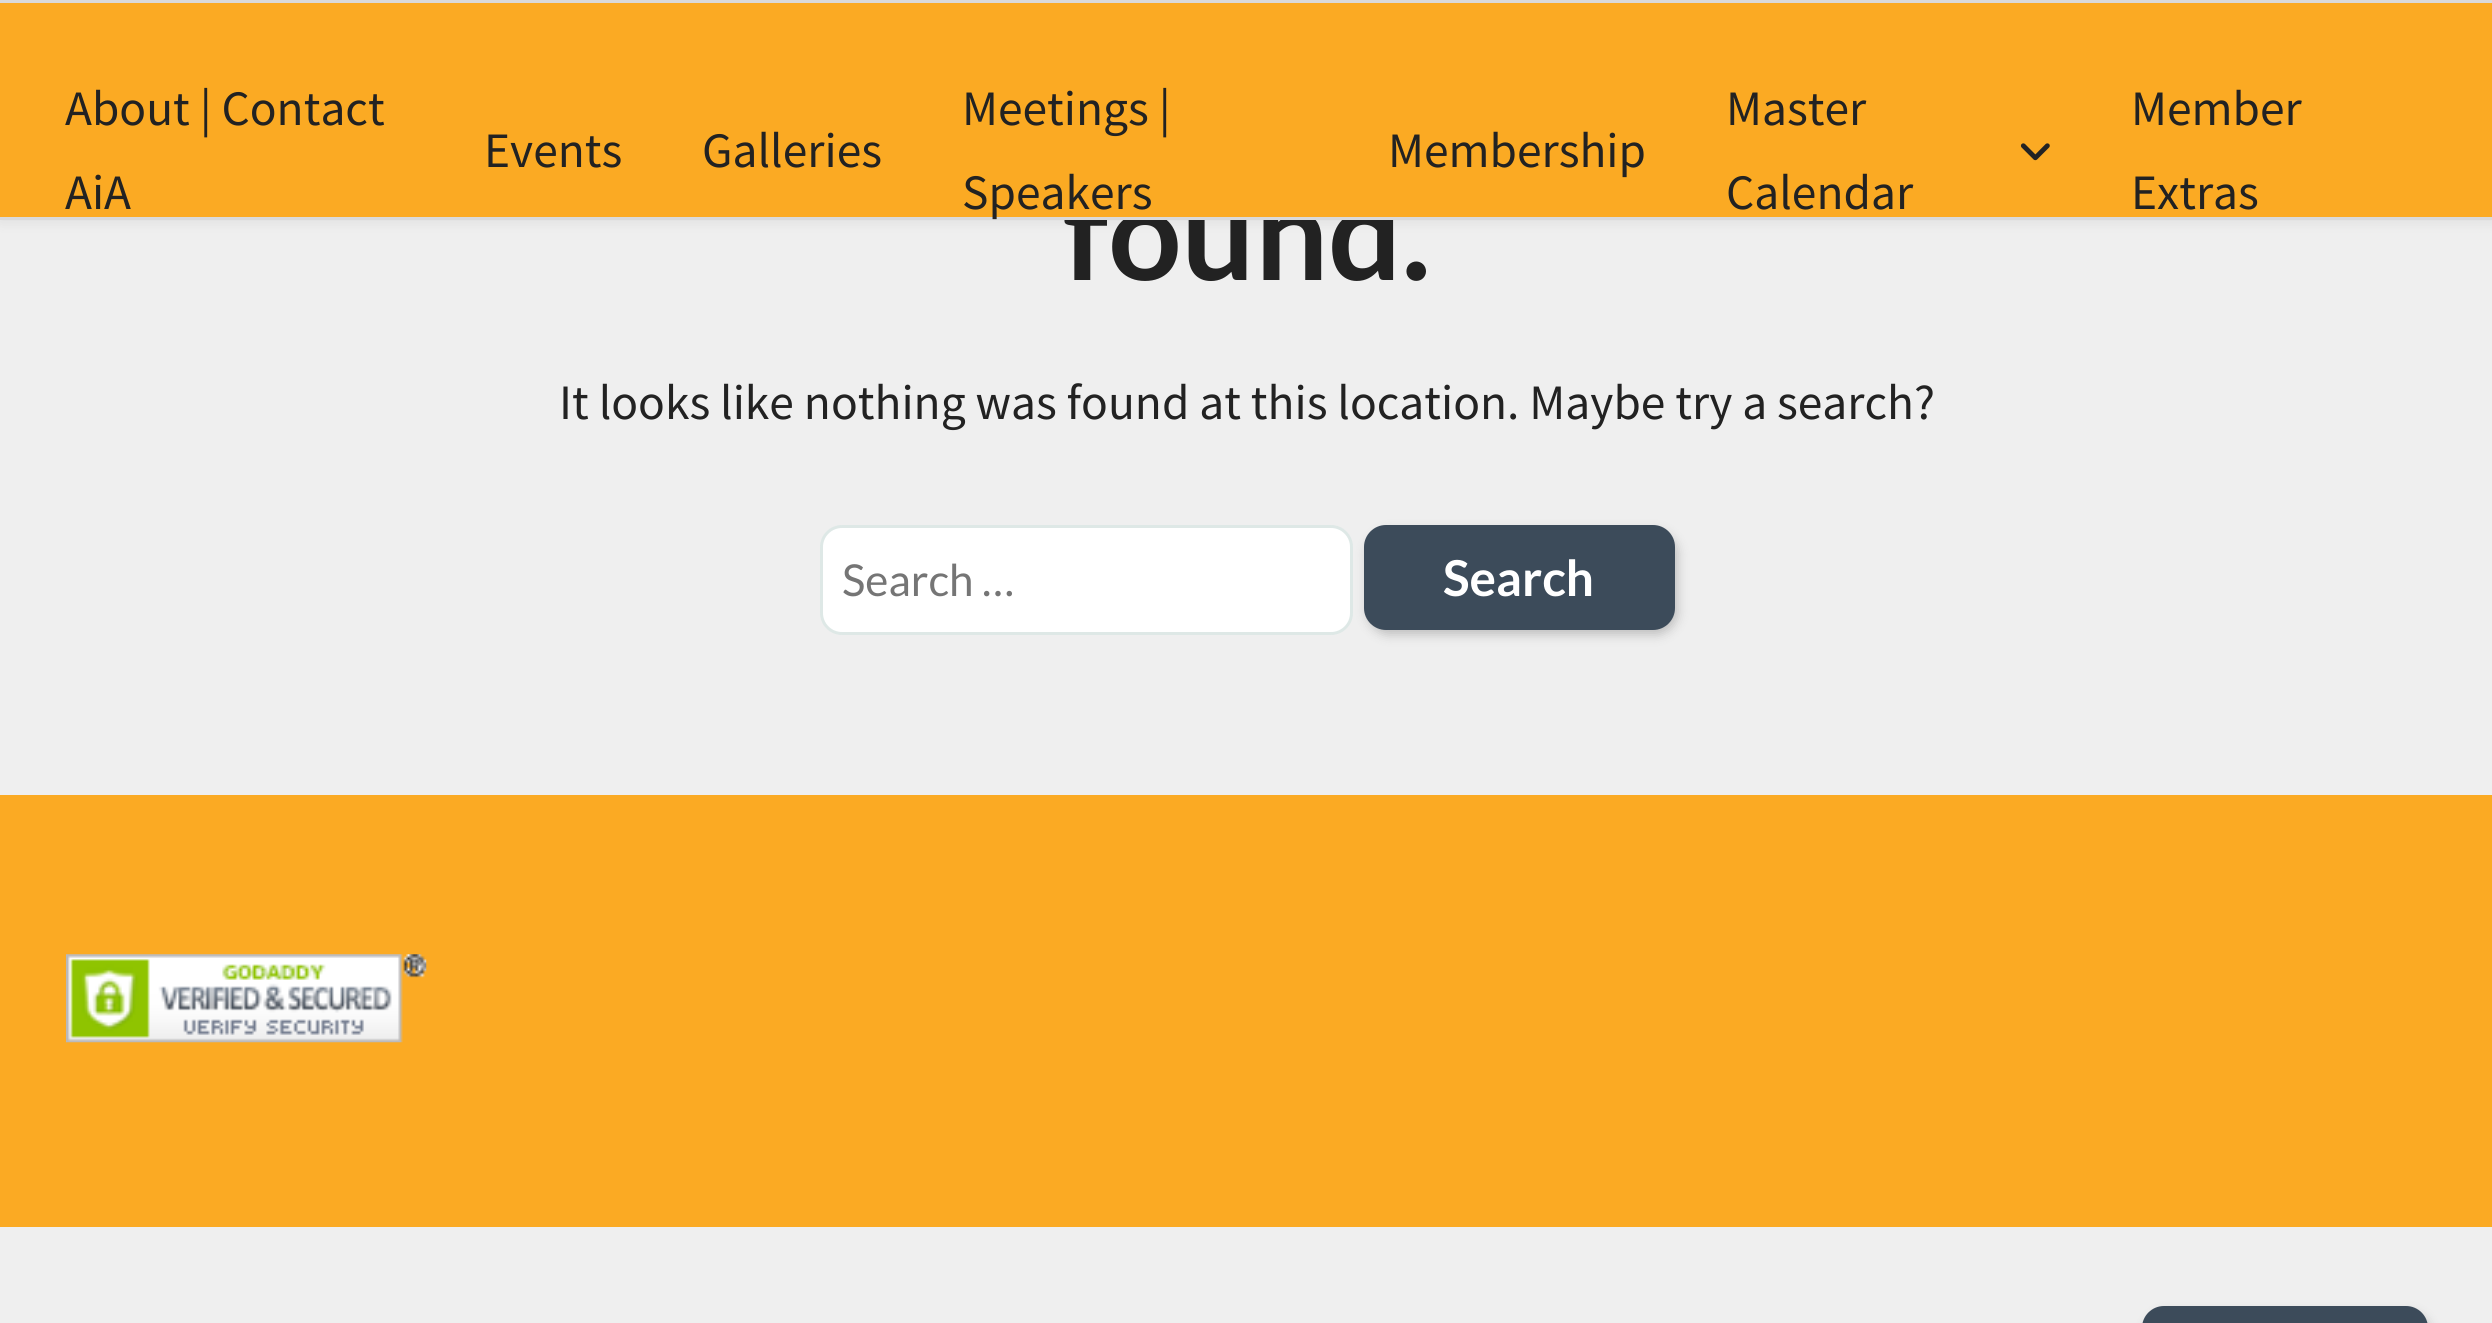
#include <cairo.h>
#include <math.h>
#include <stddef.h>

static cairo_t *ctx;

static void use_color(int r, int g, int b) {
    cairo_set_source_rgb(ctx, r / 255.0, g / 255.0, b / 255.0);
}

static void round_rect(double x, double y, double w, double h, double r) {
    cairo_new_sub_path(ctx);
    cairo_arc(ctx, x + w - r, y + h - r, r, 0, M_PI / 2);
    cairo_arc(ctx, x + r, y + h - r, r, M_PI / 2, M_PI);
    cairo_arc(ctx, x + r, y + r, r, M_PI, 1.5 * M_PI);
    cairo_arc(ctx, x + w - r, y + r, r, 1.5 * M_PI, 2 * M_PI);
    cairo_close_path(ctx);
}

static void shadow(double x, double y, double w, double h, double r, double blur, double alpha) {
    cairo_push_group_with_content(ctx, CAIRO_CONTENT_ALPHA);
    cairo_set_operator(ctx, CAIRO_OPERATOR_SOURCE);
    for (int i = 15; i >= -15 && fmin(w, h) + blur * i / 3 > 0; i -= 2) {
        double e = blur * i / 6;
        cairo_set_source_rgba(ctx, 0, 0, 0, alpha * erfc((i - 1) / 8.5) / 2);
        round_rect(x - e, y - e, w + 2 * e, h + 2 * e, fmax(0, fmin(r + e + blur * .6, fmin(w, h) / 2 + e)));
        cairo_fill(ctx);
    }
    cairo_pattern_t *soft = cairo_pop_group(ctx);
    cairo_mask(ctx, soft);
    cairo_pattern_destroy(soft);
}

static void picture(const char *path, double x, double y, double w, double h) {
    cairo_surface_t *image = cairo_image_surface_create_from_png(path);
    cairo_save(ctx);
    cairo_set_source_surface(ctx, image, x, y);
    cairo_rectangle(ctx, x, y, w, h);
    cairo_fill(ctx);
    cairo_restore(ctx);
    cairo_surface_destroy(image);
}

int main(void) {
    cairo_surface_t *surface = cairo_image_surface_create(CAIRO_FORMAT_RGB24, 2492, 1323);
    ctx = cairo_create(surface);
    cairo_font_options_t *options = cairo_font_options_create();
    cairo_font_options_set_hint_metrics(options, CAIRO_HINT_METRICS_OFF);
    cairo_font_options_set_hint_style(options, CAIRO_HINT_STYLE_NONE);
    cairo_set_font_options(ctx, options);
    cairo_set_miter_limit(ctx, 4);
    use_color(239, 239, 239);
    cairo_paint(ctx);
    use_color(0, 0, 0);
    shadow(0, 0, 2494, 220, 0, 7, 0.1);
    cairo_select_font_face(ctx, "Lato", CAIRO_FONT_SLANT_NORMAL, CAIRO_FONT_WEIGHT_BOLD);
    cairo_set_font_size(ctx, 129);
    use_color(34, 34, 34);
    cairo_move_to(ctx, 1063, 280);
    cairo_show_text(ctx, "found.");
    use_color(251, 170, 35);
    cairo_rectangle(ctx, 0, 3, 2492, 214);
    cairo_fill(ctx);
    use_color(218, 218, 218);
    cairo_rectangle(ctx, 0, 0, 2492, 3);
    cairo_fill(ctx);
    cairo_rectangle(ctx, 0, 217, 2492, 3);
    cairo_fill(ctx);
    cairo_select_font_face(ctx, "Source Sans Pro", CAIRO_FONT_SLANT_NORMAL, CAIRO_FONT_WEIGHT_NORMAL);
    cairo_set_font_size(ctx, 49.5);
    use_color(34, 34, 34);
    cairo_move_to(ctx, 65, 125);
    cairo_show_text(ctx, "About | Contact");
    cairo_move_to(ctx, 65, 209);
    cairo_show_text(ctx, "AiA");
    cairo_move_to(ctx, 484, 167);
    cairo_show_text(ctx, "Events");
    cairo_move_to(ctx, 702, 167);
    cairo_show_text(ctx, "Galleries");
    cairo_move_to(ctx, 962, 125);
    cairo_show_text(ctx, "Meetings |");
    cairo_move_to(ctx, 962, 209);
    cairo_show_text(ctx, "Speakers");
    cairo_move_to(ctx, 1388, 167);
    cairo_show_text(ctx, "Membership");
    cairo_move_to(ctx, 1726, 125);
    cairo_show_text(ctx, "Master");
    picture("img1.png", 2020, 143, 30, 18);
    cairo_move_to(ctx, 1726, 209);
    cairo_show_text(ctx, "Calendar");
    cairo_move_to(ctx, 2131, 125);
    cairo_show_text(ctx, "Member");
    cairo_move_to(ctx, 2131, 209);
    cairo_show_text(ctx, "Extras");
    cairo_move_to(ctx, 559, 419);
    cairo_show_text(ctx, "It looks like nothing was found at this location. Maybe try a search?");
    use_color(255, 255, 255);
    round_rect(820, 525, 533, 110, 22);
    cairo_fill(ctx);
    round_rect(821.5, 526.5, 530, 107, 20.5);
    cairo_set_source_rgba(ctx, 0.012, 0.329, 0.247, 0.13);
    cairo_set_line_width(ctx, 3);
    cairo_stroke(ctx);
    cairo_select_font_face(ctx, "Lato", CAIRO_FONT_SLANT_NORMAL, CAIRO_FONT_WEIGHT_NORMAL);
    cairo_set_font_size(ctx, 44);
    use_color(117, 117, 117);
    cairo_move_to(ctx, 842, 596);
    cairo_show_text(ctx, "Search …");
    use_color(0, 0, 0);
    shadow(1367, 531, 311, 104, 22, 5.5, 0.2);
    use_color(60, 75, 90);
    round_rect(1364, 525, 311, 105, 22);
    cairo_fill(ctx);
    cairo_select_font_face(ctx, "Lato", CAIRO_FONT_SLANT_NORMAL, CAIRO_FONT_WEIGHT_BOLD);
    cairo_set_font_size(ctx, 49.5);
    use_color(255, 255, 255);
    cairo_move_to(ctx, 1443, 596);
    cairo_show_text(ctx, "Search");
    use_color(251, 170, 35);
    cairo_rectangle(ctx, 0, 795, 2492, 432);
    cairo_fill(ctx);
    picture("img2.png", 66, 954, 361, 89);
    use_color(0, 0, 0);
    shadow(2145, 1312, 286, 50, 22, 5.5, 0.2);
    use_color(60, 75, 90);
    round_rect(2142, 1306, 286, 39, 22);
    cairo_fill(ctx);
    cairo_surface_write_to_png(surface, "result.png");
    cairo_font_options_destroy(options);
    cairo_destroy(ctx);
    cairo_surface_destroy(surface);
    return 0;
}
